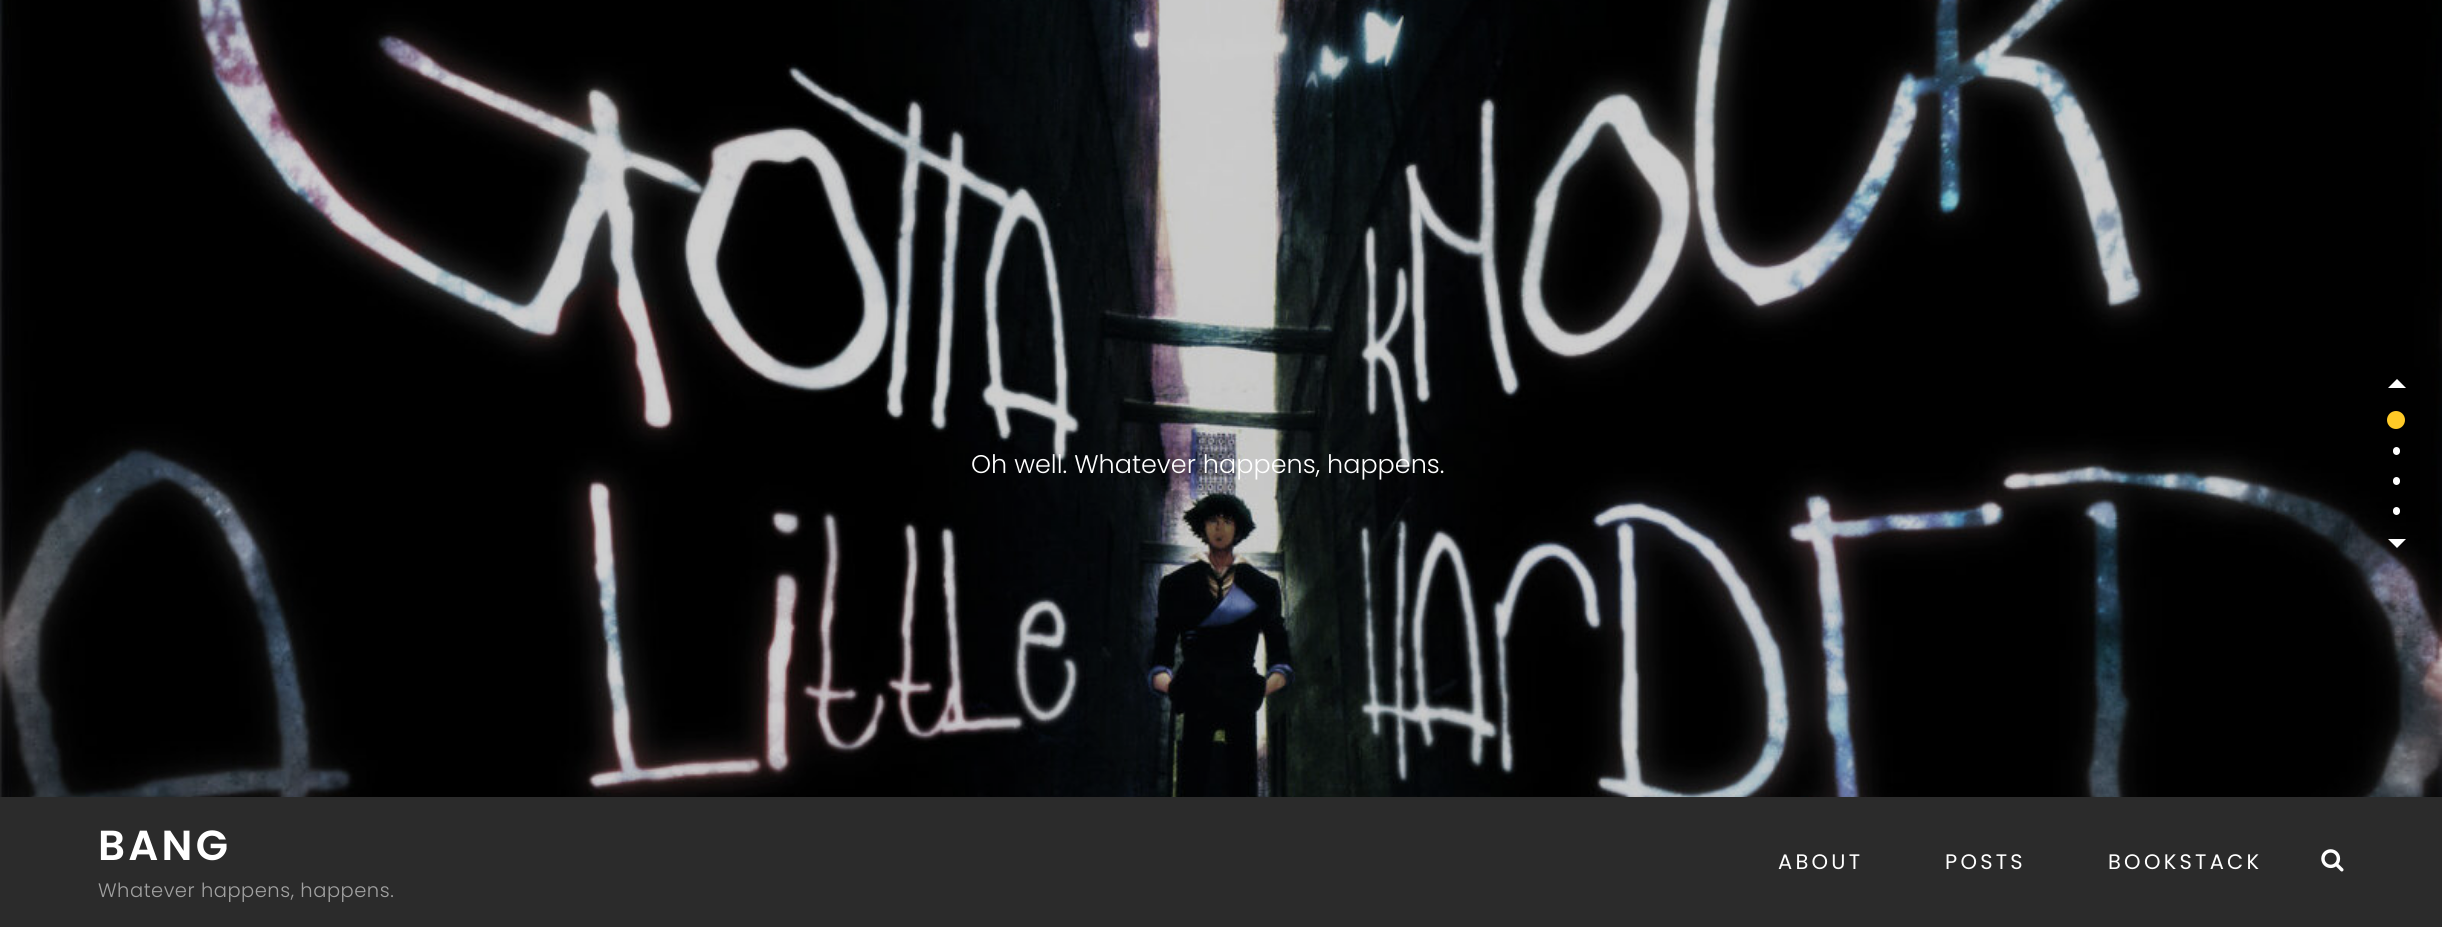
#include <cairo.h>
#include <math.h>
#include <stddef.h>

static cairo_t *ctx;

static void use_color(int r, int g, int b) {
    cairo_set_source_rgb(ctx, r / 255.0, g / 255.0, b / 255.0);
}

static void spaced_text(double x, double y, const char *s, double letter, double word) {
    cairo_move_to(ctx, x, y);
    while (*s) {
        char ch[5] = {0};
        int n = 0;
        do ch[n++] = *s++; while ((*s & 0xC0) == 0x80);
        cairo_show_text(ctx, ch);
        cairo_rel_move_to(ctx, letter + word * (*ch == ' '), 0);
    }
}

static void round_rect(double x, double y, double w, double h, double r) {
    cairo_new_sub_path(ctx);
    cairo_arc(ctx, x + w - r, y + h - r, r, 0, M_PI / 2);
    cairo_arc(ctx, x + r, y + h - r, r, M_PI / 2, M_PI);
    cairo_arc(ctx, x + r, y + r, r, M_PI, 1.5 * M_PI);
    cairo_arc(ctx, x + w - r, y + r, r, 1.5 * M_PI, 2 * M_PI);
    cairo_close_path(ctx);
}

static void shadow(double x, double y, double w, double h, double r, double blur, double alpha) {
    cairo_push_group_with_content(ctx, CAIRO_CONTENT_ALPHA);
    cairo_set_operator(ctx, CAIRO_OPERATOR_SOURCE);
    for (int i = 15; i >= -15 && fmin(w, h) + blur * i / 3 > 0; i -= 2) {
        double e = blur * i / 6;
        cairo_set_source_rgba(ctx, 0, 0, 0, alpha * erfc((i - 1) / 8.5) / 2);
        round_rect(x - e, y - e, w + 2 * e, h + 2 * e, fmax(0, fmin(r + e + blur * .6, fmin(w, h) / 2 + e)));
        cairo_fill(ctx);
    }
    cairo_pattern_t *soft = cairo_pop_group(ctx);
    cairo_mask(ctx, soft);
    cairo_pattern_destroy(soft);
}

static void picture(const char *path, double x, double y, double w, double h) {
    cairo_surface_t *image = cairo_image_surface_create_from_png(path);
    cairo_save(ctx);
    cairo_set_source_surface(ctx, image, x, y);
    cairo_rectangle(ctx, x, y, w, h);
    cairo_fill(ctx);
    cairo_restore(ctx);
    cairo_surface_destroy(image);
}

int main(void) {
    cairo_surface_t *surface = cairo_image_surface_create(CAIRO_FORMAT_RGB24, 2442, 927);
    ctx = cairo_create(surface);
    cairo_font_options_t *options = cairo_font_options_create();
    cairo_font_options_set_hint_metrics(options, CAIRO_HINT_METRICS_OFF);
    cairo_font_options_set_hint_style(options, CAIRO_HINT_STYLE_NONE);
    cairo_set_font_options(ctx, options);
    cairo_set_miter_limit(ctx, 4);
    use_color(255, 255, 255);
    cairo_paint(ctx);
    picture("img1.png", 0, 0, 2442, 797);
    cairo_select_font_face(ctx, "Poppins Light", CAIRO_FONT_SLANT_NORMAL, CAIRO_FONT_WEIGHT_NORMAL);
    cairo_set_font_size(ctx, 25.5);
    use_color(255, 255, 255);
    cairo_move_to(ctx, 971, 473);
    cairo_show_text(ctx, "Oh well. Whatever happens, happens.");
    use_color(0, 0, 0);
    shadow(0, 798, 2442, 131, 0, 2, 0.2);
    use_color(43, 43, 43);
    cairo_rectangle(ctx, 0, 797, 2442, 130);
    cairo_fill(ctx);
    cairo_select_font_face(ctx, "Poppins SemiBold", CAIRO_FONT_SLANT_NORMAL, CAIRO_FONT_WEIGHT_NORMAL);
    cairo_set_font_size(ctx, 42);
    use_color(255, 255, 255);
    spaced_text(98, 860, "BANG", 3.25, 0);
    cairo_select_font_face(ctx, "Poppins Light", CAIRO_FONT_SLANT_NORMAL, CAIRO_FONT_WEIGHT_NORMAL);
    cairo_set_font_size(ctx, 19.5);
    use_color(160, 160, 160);
    spaced_text(98, 897, "Whatever happens, happens.", 0.5, 0);
    cairo_select_font_face(ctx, "Poppins", CAIRO_FONT_SLANT_NORMAL, CAIRO_FONT_WEIGHT_NORMAL);
    cairo_set_font_size(ctx, 21);
    use_color(255, 255, 255);
    spaced_text(1778, 869, "ABOUT", 3.25, 0);
    spaced_text(1945, 869, "POSTS", 3.25, 0);
    spaced_text(2108, 869, "BOOKSTACK", 3.25, 0);
    picture("img2.png", 2321, 849, 23, 23);
    cairo_new_path(ctx);
    cairo_move_to(ctx, 2406, 388);
    cairo_line_to(ctx, 2388, 388);
    cairo_line_to(ctx, 2397, 379);
    cairo_close_path(ctx);
    cairo_fill(ctx);
    use_color(255, 202, 39);
    cairo_arc(ctx, 2396, 420, 9, 0, 2 * M_PI);
    cairo_fill(ctx);
    use_color(255, 255, 255);
    round_rect(2393, 447, 7, 8, 3.5);
    cairo_fill(ctx);
    round_rect(2393, 477, 7, 8, 3.5);
    cairo_fill(ctx);
    round_rect(2393, 507, 7, 8, 3.5);
    cairo_fill(ctx);
    cairo_new_path(ctx);
    cairo_move_to(ctx, 2388, 539);
    cairo_line_to(ctx, 2406, 539);
    cairo_line_to(ctx, 2397, 548);
    cairo_close_path(ctx);
    cairo_fill(ctx);
    cairo_surface_write_to_png(surface, "result.png");
    cairo_font_options_destroy(options);
    cairo_destroy(ctx);
    cairo_surface_destroy(surface);
    return 0;
}
